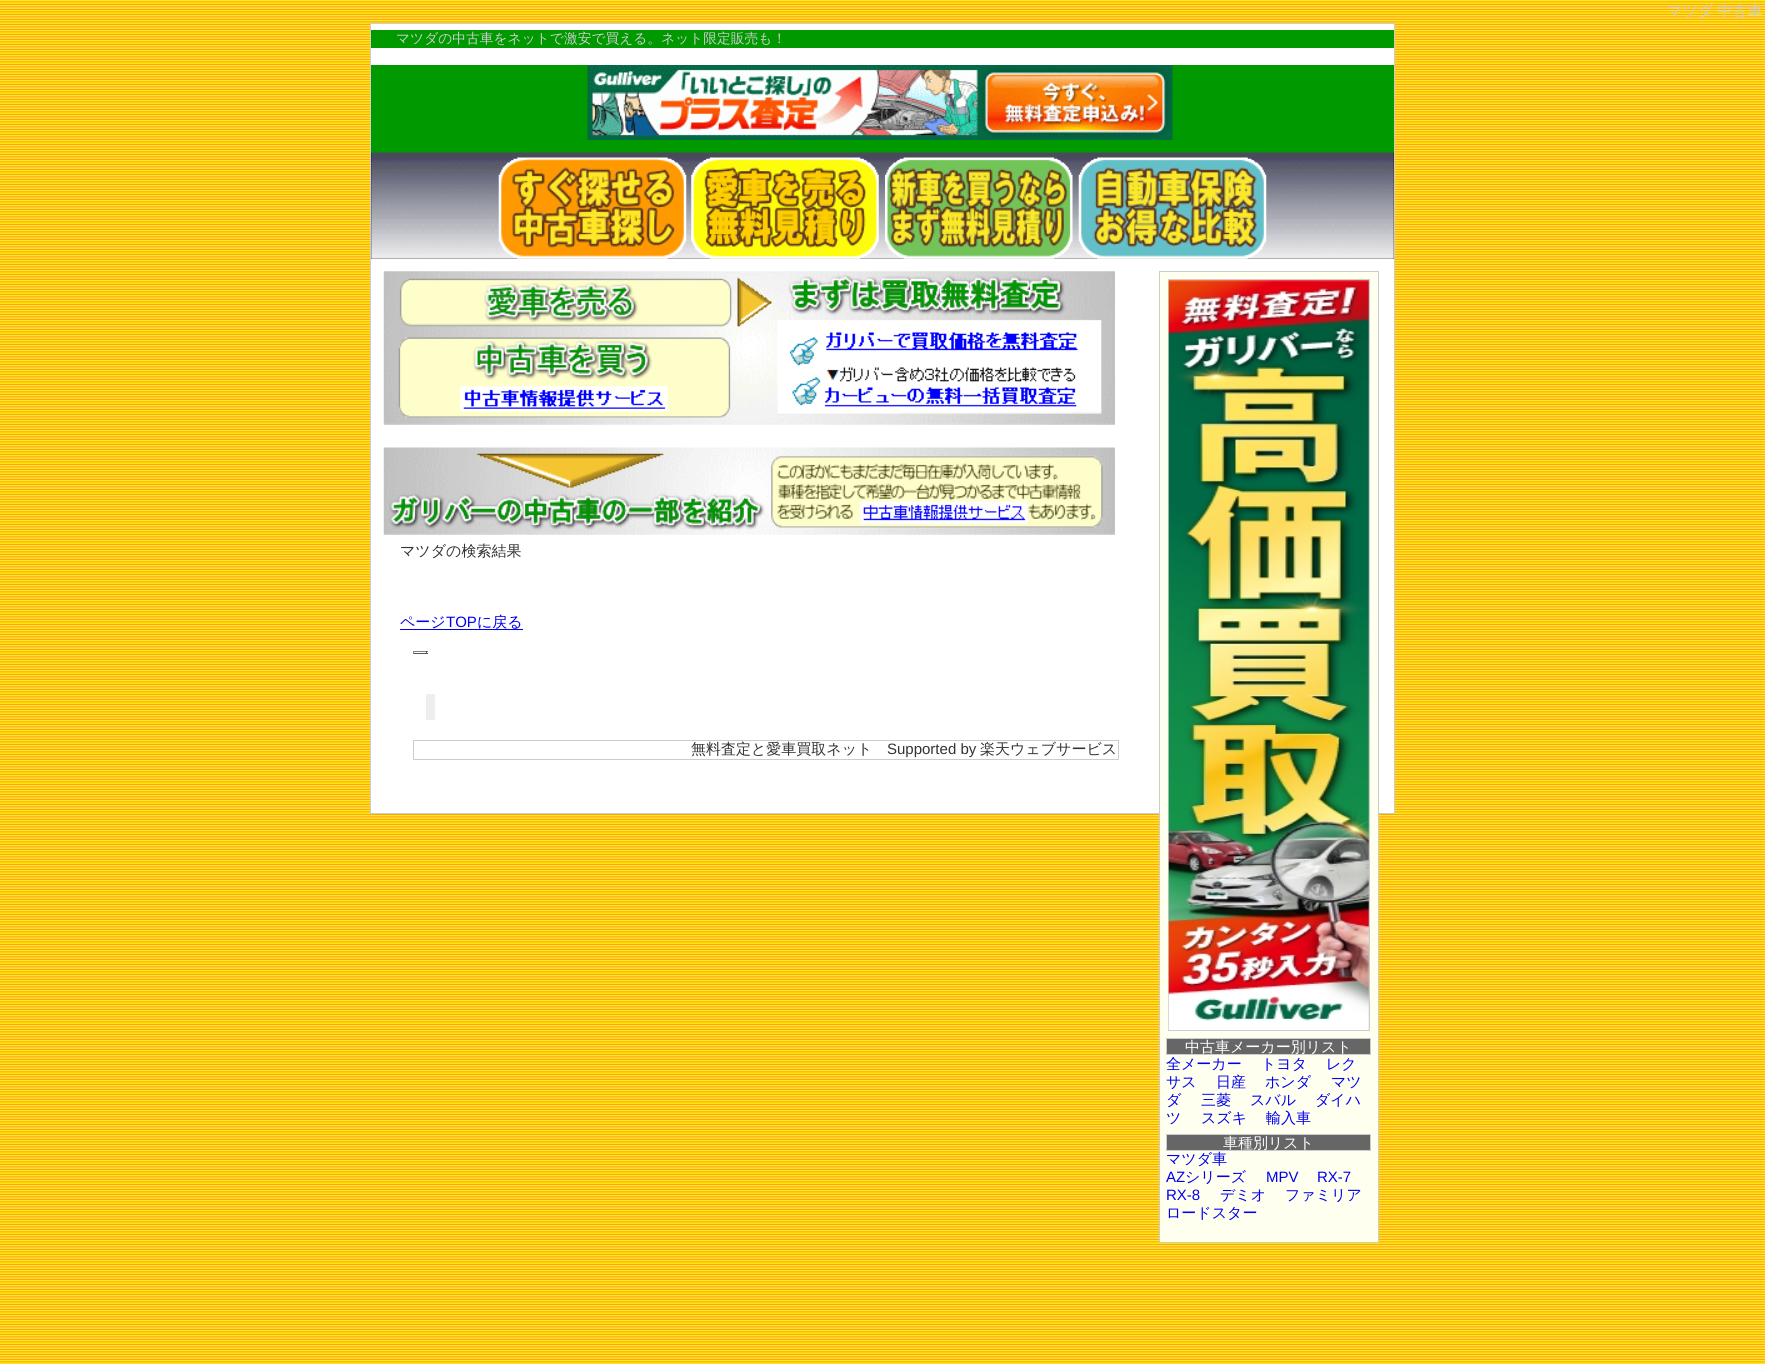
#include <cairo.h>
#include <math.h>
#include <stddef.h>

static cairo_t *ctx;

static void use_color(int r, int g, int b) {
    cairo_set_source_rgb(ctx, r / 255.0, g / 255.0, b / 255.0);
}

static void picture(const char *path, double x, double y, double w, double h) {
    cairo_surface_t *image = cairo_image_surface_create_from_png(path);
    cairo_save(ctx);
    cairo_set_source_surface(ctx, image, x, y);
    cairo_rectangle(ctx, x, y, w, h);
    cairo_fill(ctx);
    cairo_restore(ctx);
    cairo_surface_destroy(image);
}

int main(void) {
    cairo_surface_t *surface = cairo_image_surface_create(CAIRO_FORMAT_RGB24, 1765, 1364);
    ctx = cairo_create(surface);
    cairo_font_options_t *options = cairo_font_options_create();
    cairo_font_options_set_hint_metrics(options, CAIRO_HINT_METRICS_OFF);
    cairo_font_options_set_hint_style(options, CAIRO_HINT_STYLE_NONE);
    cairo_set_font_options(ctx, options);
    cairo_set_miter_limit(ctx, 4);
    use_color(255, 255, 255);
    cairo_paint(ctx);
    picture("img1.png", 0, 0, 1765, 1364);
    cairo_select_font_face(ctx, "WenQuanYi Zen Hei Medium", CAIRO_FONT_SLANT_NORMAL, CAIRO_FONT_WEIGHT_NORMAL);
    cairo_set_font_size(ctx, 15);
    use_color(204, 204, 204);
    cairo_move_to(ctx, 1667, 16);
    cairo_show_text(ctx, "マツダ 中古車");
    use_color(255, 255, 255);
    cairo_rectangle(ctx, 370.5, 23.5, 1024, 790);
    cairo_fill_preserve(ctx);
    use_color(204, 204, 204);
    cairo_set_line_width(ctx, 1);
    cairo_stroke(ctx);
    use_color(0, 153, 0);
    cairo_rectangle(ctx, 371, 30, 1023, 18);
    cairo_fill(ctx);
    cairo_set_font_size(ctx, 13.75);
    use_color(204, 204, 204);
    cairo_move_to(ctx, 396, 43);
    cairo_show_text(ctx, "マツダの中古車をネットで激安で買える。ネット限定販売も！");
    use_color(0, 153, 0);
    cairo_rectangle(ctx, 371, 65, 1023, 88);
    cairo_fill(ctx);
    picture("img2.png", 587, 65, 586, 75);
    use_color(0, 0, 0);
    cairo_rectangle(ctx, 371, 153, 1023, 106);
    cairo_fill(ctx);
    picture("img3.png", 371, 152, 1023, 107);
    picture("img4.png", 498, 157, 189, 102);
    picture("img5.png", 691, 157, 188, 102);
    picture("img6.png", 885, 157, 188, 102);
    picture("img7.png", 1078, 157, 189, 102);
    picture("img8.png", 383, 271, 732, 154);
    picture("img9.png", 383, 447, 732, 88);
    cairo_set_font_size(ctx, 15);
    use_color(51, 51, 51);
    cairo_move_to(ctx, 400, 556);
    cairo_show_text(ctx, "マツダの検索結果");
    use_color(0, 0, 238);
    cairo_move_to(ctx, 400, 627);
    cairo_show_text(ctx, "ページ");
    cairo_rectangle(ctx, 400, 629, 123, 1);
    cairo_fill(ctx);
    cairo_select_font_face(ctx, "Liberation Sans", CAIRO_FONT_SLANT_NORMAL, CAIRO_FONT_WEIGHT_NORMAL);
    cairo_move_to(ctx, 446, 627);
    cairo_show_text(ctx, "TOP");
    cairo_select_font_face(ctx, "WenQuanYi Zen Hei Medium", CAIRO_FONT_SLANT_NORMAL, CAIRO_FONT_WEIGHT_NORMAL);
    cairo_move_to(ctx, 477, 627);
    cairo_show_text(ctx, "に戻る");
    use_color(128, 128, 128);
    cairo_rectangle(ctx, 413, 651, 15, 1);
    cairo_fill(ctx);
    use_color(85, 85, 85);
    cairo_rectangle(ctx, 426, 651, 1, 3);
    cairo_fill(ctx);
    cairo_rectangle(ctx, 413, 653, 15, 1);
    cairo_fill(ctx);
    use_color(128, 128, 128);
    cairo_rectangle(ctx, 413, 651, 1, 3);
    cairo_fill(ctx);
    use_color(238, 238, 238);
    cairo_rectangle(ctx, 426, 694, 9, 26);
    cairo_fill(ctx);
    cairo_rectangle(ctx, 413.5, 740.5, 705, 19);
    use_color(204, 204, 204);
    cairo_stroke(ctx);
    use_color(51, 51, 51);
    cairo_move_to(ctx, 691, 754);
    cairo_show_text(ctx, "無料査定と愛車買取ネット");
    cairo_select_font_face(ctx, "Liberation Sans", CAIRO_FONT_SLANT_NORMAL, CAIRO_FONT_WEIGHT_NORMAL);
    cairo_move_to(ctx, 887, 754);
    cairo_show_text(ctx, "Supported by");
    cairo_select_font_face(ctx, "WenQuanYi Zen Hei Medium", CAIRO_FONT_SLANT_NORMAL, CAIRO_FONT_WEIGHT_NORMAL);
    cairo_move_to(ctx, 980, 754);
    cairo_show_text(ctx, "楽天ウェブサービス");
    use_color(255, 255, 240);
    cairo_rectangle(ctx, 1159.5, 271.5, 219, 971);
    cairo_fill_preserve(ctx);
    use_color(204, 204, 204);
    cairo_stroke(ctx);
    cairo_rectangle(ctx, 1168, 279, 202, 752);
    cairo_fill(ctx);
    picture("img10.png", 1168, 280, 201, 750);
    use_color(102, 102, 102);
    cairo_rectangle(ctx, 1166.5, 1038.5, 204, 16);
    cairo_fill_preserve(ctx);
    use_color(204, 204, 204);
    cairo_stroke(ctx);
    use_color(255, 255, 255);
    cairo_move_to(ctx, 1185, 1052);
    cairo_show_text(ctx, "中古車メーカー別リスト");
    use_color(0, 0, 238);
    cairo_move_to(ctx, 1166, 1069);
    cairo_show_text(ctx, "全メーカー");
    cairo_move_to(ctx, 1261, 1069);
    cairo_show_text(ctx, "トヨタ");
    cairo_move_to(ctx, 1326, 1069);
    cairo_show_text(ctx, "レク");
    cairo_move_to(ctx, 1166, 1087);
    cairo_show_text(ctx, "サス");
    cairo_move_to(ctx, 1216, 1087);
    cairo_show_text(ctx, "日産");
    cairo_move_to(ctx, 1265, 1087);
    cairo_show_text(ctx, "ホンダ");
    cairo_move_to(ctx, 1331, 1087);
    cairo_show_text(ctx, "マツ");
    cairo_move_to(ctx, 1166, 1105);
    cairo_show_text(ctx, "ダ");
    cairo_move_to(ctx, 1201, 1105);
    cairo_show_text(ctx, "三菱");
    cairo_move_to(ctx, 1250, 1105);
    cairo_show_text(ctx, "スバル");
    cairo_move_to(ctx, 1315, 1105);
    cairo_show_text(ctx, "ダイハ");
    cairo_move_to(ctx, 1166, 1123);
    cairo_show_text(ctx, "ツ");
    cairo_move_to(ctx, 1201, 1123);
    cairo_show_text(ctx, "スズキ");
    cairo_move_to(ctx, 1266, 1123);
    cairo_show_text(ctx, "輸入車");
    use_color(102, 102, 102);
    cairo_rectangle(ctx, 1166.5, 1134.5, 204, 16);
    cairo_fill_preserve(ctx);
    use_color(204, 204, 204);
    cairo_stroke(ctx);
    use_color(255, 255, 255);
    cairo_move_to(ctx, 1223, 1148);
    cairo_show_text(ctx, "車種別リスト");
    use_color(0, 0, 238);
    cairo_move_to(ctx, 1166, 1164);
    cairo_show_text(ctx, "マツダ車");
    cairo_select_font_face(ctx, "Liberation Sans", CAIRO_FONT_SLANT_NORMAL, CAIRO_FONT_WEIGHT_NORMAL);
    cairo_move_to(ctx, 1166, 1182);
    cairo_show_text(ctx, "AZ");
    cairo_select_font_face(ctx, "WenQuanYi Zen Hei Medium", CAIRO_FONT_SLANT_NORMAL, CAIRO_FONT_WEIGHT_NORMAL);
    cairo_move_to(ctx, 1185, 1182);
    cairo_show_text(ctx, "シリーズ");
    cairo_select_font_face(ctx, "Liberation Sans", CAIRO_FONT_SLANT_NORMAL, CAIRO_FONT_WEIGHT_NORMAL);
    cairo_move_to(ctx, 1266, 1182);
    cairo_show_text(ctx, "MPV");
    cairo_move_to(ctx, 1317, 1182);
    cairo_show_text(ctx, "RX-7");
    cairo_move_to(ctx, 1166, 1200);
    cairo_show_text(ctx, "RX-8");
    cairo_select_font_face(ctx, "WenQuanYi Zen Hei Medium", CAIRO_FONT_SLANT_NORMAL, CAIRO_FONT_WEIGHT_NORMAL);
    cairo_move_to(ctx, 1220, 1200);
    cairo_show_text(ctx, "デミオ");
    cairo_move_to(ctx, 1285, 1200);
    cairo_show_text(ctx, "ファミリア");
    cairo_move_to(ctx, 1166, 1218);
    cairo_show_text(ctx, "ロードスター");
    cairo_surface_write_to_png(surface, "result.png");
    cairo_font_options_destroy(options);
    cairo_destroy(ctx);
    cairo_surface_destroy(surface);
    return 0;
}
